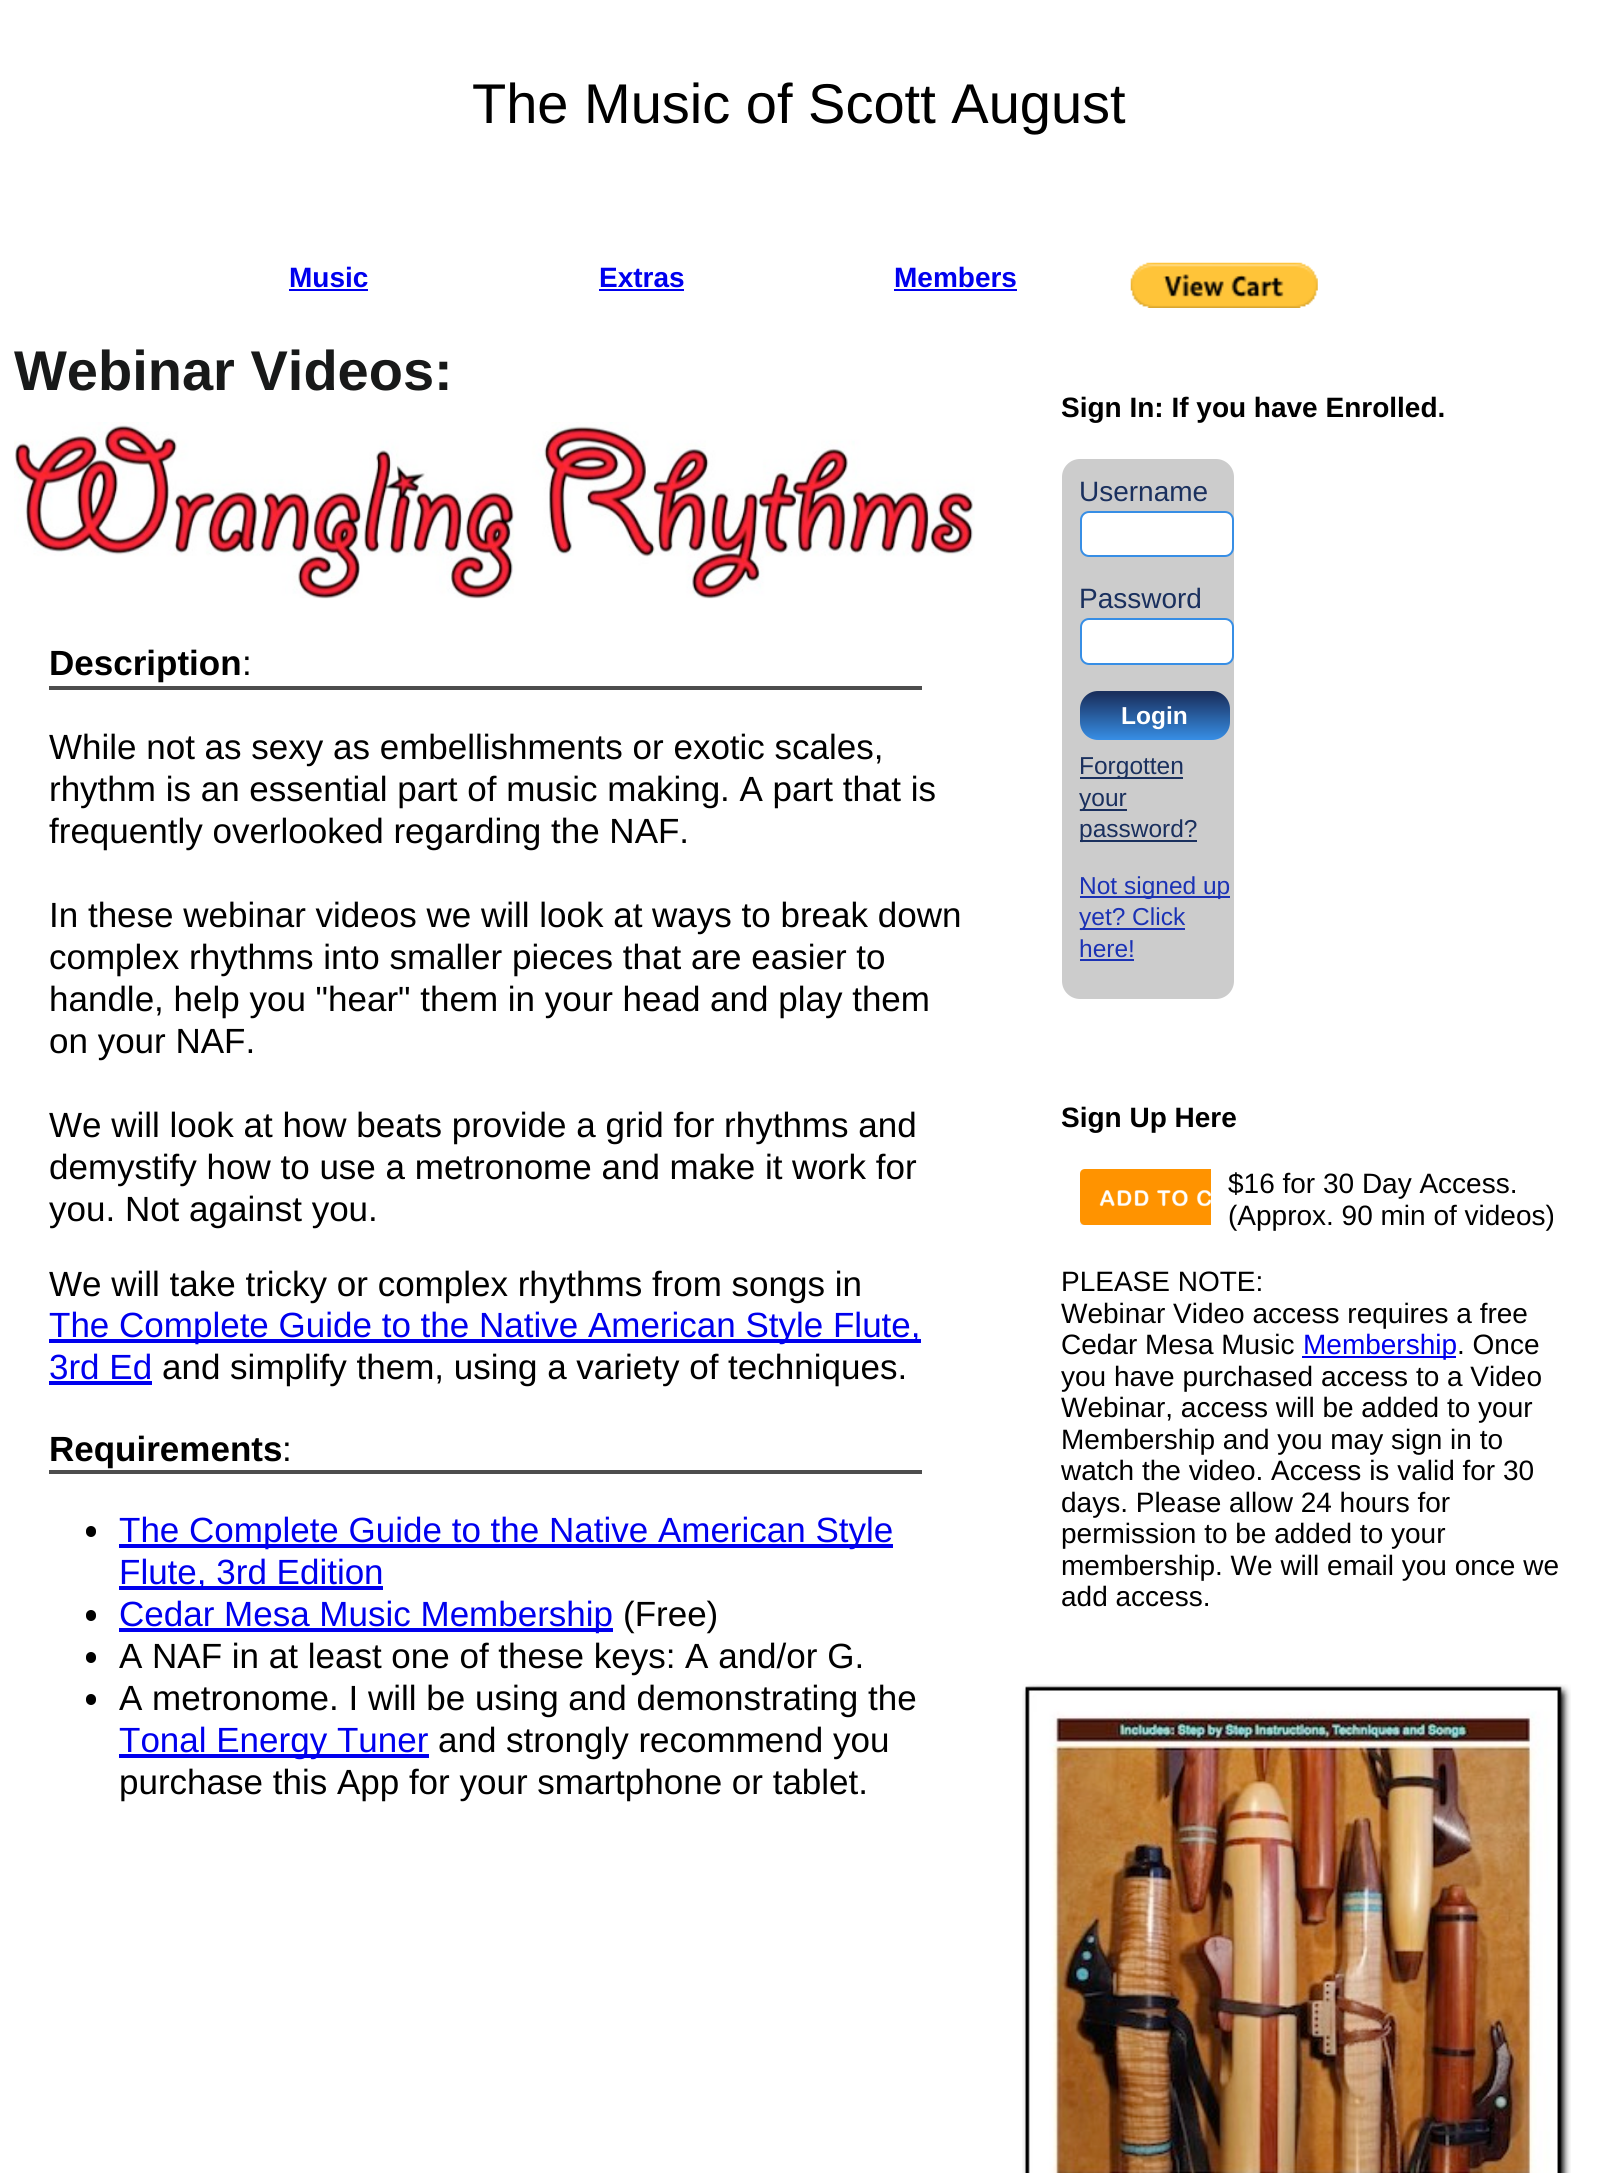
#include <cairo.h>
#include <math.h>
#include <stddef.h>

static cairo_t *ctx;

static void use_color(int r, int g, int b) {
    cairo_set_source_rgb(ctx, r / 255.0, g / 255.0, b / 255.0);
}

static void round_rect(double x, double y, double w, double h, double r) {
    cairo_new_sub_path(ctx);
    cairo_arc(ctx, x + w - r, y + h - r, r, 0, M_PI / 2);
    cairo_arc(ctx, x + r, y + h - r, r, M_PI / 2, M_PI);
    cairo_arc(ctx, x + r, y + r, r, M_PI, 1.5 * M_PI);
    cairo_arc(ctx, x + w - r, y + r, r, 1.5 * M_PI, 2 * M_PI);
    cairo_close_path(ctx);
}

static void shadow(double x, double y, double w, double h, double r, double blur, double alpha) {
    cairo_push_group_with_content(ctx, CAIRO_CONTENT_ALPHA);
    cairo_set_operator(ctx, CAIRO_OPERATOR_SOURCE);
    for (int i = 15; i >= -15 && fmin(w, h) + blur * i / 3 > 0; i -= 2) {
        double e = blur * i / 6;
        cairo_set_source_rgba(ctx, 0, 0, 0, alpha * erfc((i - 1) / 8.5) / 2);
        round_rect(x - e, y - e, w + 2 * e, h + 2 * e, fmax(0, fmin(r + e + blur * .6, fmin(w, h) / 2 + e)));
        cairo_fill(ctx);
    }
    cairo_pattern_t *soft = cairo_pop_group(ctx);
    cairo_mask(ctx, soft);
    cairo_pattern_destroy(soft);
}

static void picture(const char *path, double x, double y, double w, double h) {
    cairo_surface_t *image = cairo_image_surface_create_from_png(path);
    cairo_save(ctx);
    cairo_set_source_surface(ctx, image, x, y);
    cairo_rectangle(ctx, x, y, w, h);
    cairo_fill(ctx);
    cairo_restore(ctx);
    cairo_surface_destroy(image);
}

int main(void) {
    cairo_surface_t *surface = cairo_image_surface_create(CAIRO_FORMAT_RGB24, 1597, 2173);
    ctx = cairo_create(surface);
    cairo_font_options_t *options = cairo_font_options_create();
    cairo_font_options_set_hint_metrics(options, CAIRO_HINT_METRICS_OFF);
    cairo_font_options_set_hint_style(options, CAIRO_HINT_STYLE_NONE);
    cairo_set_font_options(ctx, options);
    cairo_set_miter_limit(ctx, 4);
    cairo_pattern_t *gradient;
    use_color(255, 255, 255);
    cairo_paint(ctx);
    cairo_select_font_face(ctx, "Liberation Sans", CAIRO_FONT_SLANT_NORMAL, CAIRO_FONT_WEIGHT_NORMAL);
    cairo_set_font_size(ctx, 56);
    use_color(0, 0, 0);
    cairo_move_to(ctx, 472, 123);
    cairo_show_text(ctx, "The Music of Scott August");
    cairo_select_font_face(ctx, "Liberation Sans", CAIRO_FONT_SLANT_NORMAL, CAIRO_FONT_WEIGHT_BOLD);
    cairo_set_font_size(ctx, 28);
    use_color(0, 0, 238);
    cairo_move_to(ctx, 289, 287);
    cairo_show_text(ctx, "Music");
    cairo_rectangle(ctx, 289, 289, 79, 2);
    cairo_fill(ctx);
    cairo_move_to(ctx, 599, 287);
    cairo_show_text(ctx, "Extras");
    cairo_rectangle(ctx, 599, 289, 85, 2);
    cairo_fill(ctx);
    cairo_move_to(ctx, 894, 287);
    cairo_show_text(ctx, "Members");
    cairo_rectangle(ctx, 894, 289, 123, 2);
    cairo_fill(ctx);
    picture("img1.png", 1130, 262, 188, 46);
    cairo_set_font_size(ctx, 56);
    use_color(24, 25, 25);
    cairo_move_to(ctx, 14, 390);
    cairo_show_text(ctx, "Webinar Videos:");
    picture("img2.png", 14, 422, 961, 177);
    use_color(77, 77, 77);
    cairo_rectangle(ctx, 49, 686, 873, 4);
    cairo_fill(ctx);
    cairo_set_font_size(ctx, 35);
    use_color(0, 0, 0);
    cairo_move_to(ctx, 49, 675);
    cairo_show_text(ctx, "Description");
    cairo_select_font_face(ctx, "Liberation Sans", CAIRO_FONT_SLANT_NORMAL, CAIRO_FONT_WEIGHT_NORMAL);
    cairo_move_to(ctx, 242, 675);
    cairo_show_text(ctx, ":");
    cairo_move_to(ctx, 49, 759);
    cairo_show_text(ctx, "While not as sexy as embellishments or exotic scales,");
    cairo_move_to(ctx, 49, 801);
    cairo_show_text(ctx, "rhythm is an essential part of music making. A part that is");
    cairo_move_to(ctx, 49, 843);
    cairo_show_text(ctx, "frequently overlooked regarding the NAF.");
    cairo_move_to(ctx, 49, 927);
    cairo_show_text(ctx, "In these webinar videos we will look at ways to break down");
    cairo_move_to(ctx, 49, 969);
    cairo_show_text(ctx, "complex rhythms into smaller pieces that are easier to");
    cairo_move_to(ctx, 49, 1011);
    cairo_show_text(ctx, "handle, help you \"hear\" them in your head and play them");
    cairo_move_to(ctx, 49, 1053);
    cairo_show_text(ctx, "on your NAF.");
    cairo_move_to(ctx, 49, 1137);
    cairo_show_text(ctx, "We will look at how beats provide a grid for rhythms and");
    cairo_move_to(ctx, 49, 1179);
    cairo_show_text(ctx, "demystify how to use a metronome and make it work for");
    cairo_move_to(ctx, 49, 1221);
    cairo_show_text(ctx, "you. Not against you.");
    cairo_move_to(ctx, 49, 1296);
    cairo_show_text(ctx, "We will take tricky or complex rhythms from songs in");
    use_color(0, 0, 238);
    cairo_rectangle(ctx, 49, 1339, 872, 4);
    cairo_fill(ctx);
    cairo_move_to(ctx, 49, 1337);
    cairo_show_text(ctx, "The Complete Guide to the Native American Style Flute,");
    cairo_move_to(ctx, 49, 1379);
    cairo_show_text(ctx, "3rd Ed");
    cairo_rectangle(ctx, 49, 1381, 103, 4);
    cairo_fill(ctx);
    use_color(0, 0, 0);
    cairo_move_to(ctx, 162, 1379);
    cairo_show_text(ctx, "and simplify them, using a variety of techniques.");
    use_color(77, 77, 77);
    cairo_rectangle(ctx, 49, 1470, 873, 4);
    cairo_fill(ctx);
    cairo_select_font_face(ctx, "Liberation Sans", CAIRO_FONT_SLANT_NORMAL, CAIRO_FONT_WEIGHT_BOLD);
    use_color(0, 0, 0);
    cairo_move_to(ctx, 49, 1461);
    cairo_show_text(ctx, "Requirements");
    cairo_select_font_face(ctx, "Liberation Sans", CAIRO_FONT_SLANT_NORMAL, CAIRO_FONT_WEIGHT_NORMAL);
    cairo_move_to(ctx, 282, 1461);
    cairo_show_text(ctx, ":");
    round_rect(86, 1526, 10, 11, 5);
    cairo_fill(ctx);
    use_color(0, 0, 238);
    cairo_rectangle(ctx, 119, 1544, 774, 4);
    cairo_fill(ctx);
    cairo_move_to(ctx, 119, 1542);
    cairo_show_text(ctx, "The Complete Guide to the Native American Style");
    cairo_rectangle(ctx, 119, 1586, 264, 4);
    cairo_fill(ctx);
    cairo_move_to(ctx, 119, 1584);
    cairo_show_text(ctx, "Flute, 3rd Edition");
    use_color(0, 0, 0);
    round_rect(86, 1610, 10, 11, 5);
    cairo_fill(ctx);
    use_color(0, 0, 238);
    cairo_rectangle(ctx, 119, 1628, 494, 4);
    cairo_fill(ctx);
    cairo_move_to(ctx, 119, 1626);
    cairo_show_text(ctx, "Cedar Mesa Music Membership");
    use_color(0, 0, 0);
    cairo_move_to(ctx, 623, 1626);
    cairo_show_text(ctx, "(Free)");
    round_rect(86, 1652, 10, 11, 5);
    cairo_fill(ctx);
    cairo_move_to(ctx, 119, 1668);
    cairo_show_text(ctx, "A NAF in at least one of these keys: A and/or G.");
    round_rect(86, 1694, 10, 11, 5);
    cairo_fill(ctx);
    cairo_move_to(ctx, 119, 1710);
    cairo_show_text(ctx, "A metronome. I will be using and demonstrating the");
    use_color(0, 0, 238);
    cairo_rectangle(ctx, 119, 1754, 310, 4);
    cairo_fill(ctx);
    cairo_move_to(ctx, 119, 1752);
    cairo_show_text(ctx, "Tonal Energy Tuner");
    use_color(0, 0, 0);
    cairo_move_to(ctx, 438, 1752);
    cairo_show_text(ctx, "and strongly recommend you");
    cairo_move_to(ctx, 119, 1794);
    cairo_show_text(ctx, "purchase this App for your smartphone or tablet.");
    cairo_select_font_face(ctx, "Liberation Sans", CAIRO_FONT_SLANT_NORMAL, CAIRO_FONT_WEIGHT_BOLD);
    cairo_set_font_size(ctx, 28);
    cairo_move_to(ctx, 1061, 417);
    cairo_show_text(ctx, "Sign In: If you have Enrolled.");
    use_color(204, 204, 204);
    round_rect(1062, 459, 172, 540, 18);
    cairo_fill(ctx);
    cairo_select_font_face(ctx, "Liberation Sans", CAIRO_FONT_SLANT_NORMAL, CAIRO_FONT_WEIGHT_NORMAL);
    use_color(26, 48, 94);
    cairo_move_to(ctx, 1079, 501);
    cairo_show_text(ctx, "Username");
    use_color(255, 255, 255);
    round_rect(1081, 512, 152, 44, 8);
    cairo_fill_preserve(ctx);
    use_color(55, 142, 229);
    cairo_stroke(ctx);
    use_color(26, 48, 94);
    cairo_move_to(ctx, 1079, 608);
    cairo_show_text(ctx, "Password");
    use_color(255, 255, 255);
    round_rect(1081, 619, 152, 45, 8);
    cairo_fill_preserve(ctx);
    use_color(55, 142, 229);
    cairo_stroke(ctx);
    gradient = cairo_pattern_create_linear(1155, 691, 1155, 740);
    cairo_pattern_add_color_stop_rgba(gradient, 0.05, 0.102, 0.188, 0.369, 1);
    cairo_pattern_add_color_stop_rgba(gradient, 1, 0.216, 0.557, 0.898, 1);
    cairo_set_source(ctx, gradient);
    cairo_pattern_destroy(gradient);
    round_rect(1080, 691, 150, 49, 18);
    cairo_fill(ctx);
    cairo_select_font_face(ctx, "Liberation Sans", CAIRO_FONT_SLANT_NORMAL, CAIRO_FONT_WEIGHT_BOLD);
    cairo_set_font_size(ctx, 24.5);
    use_color(255, 255, 255);
    cairo_move_to(ctx, 1121, 724);
    cairo_show_text(ctx, "Login");
    use_color(26, 48, 94);
    cairo_rectangle(ctx, 1080, 777, 103, 2);
    cairo_fill(ctx);
    cairo_select_font_face(ctx, "Liberation Sans", CAIRO_FONT_SLANT_NORMAL, CAIRO_FONT_WEIGHT_NORMAL);
    cairo_move_to(ctx, 1079, 774);
    cairo_show_text(ctx, "Forgotten");
    cairo_rectangle(ctx, 1080, 809, 47, 2);
    cairo_fill(ctx);
    cairo_move_to(ctx, 1079, 806);
    cairo_show_text(ctx, "your");
    cairo_rectangle(ctx, 1080, 840, 117, 2);
    cairo_fill(ctx);
    cairo_move_to(ctx, 1079, 837);
    cairo_show_text(ctx, "password?");
    use_color(27, 50, 181);
    cairo_rectangle(ctx, 1080, 896, 150, 2);
    cairo_fill(ctx);
    cairo_move_to(ctx, 1079, 894);
    cairo_show_text(ctx, "Not signed up");
    cairo_rectangle(ctx, 1080, 928, 105, 2);
    cairo_fill(ctx);
    cairo_move_to(ctx, 1079, 925);
    cairo_show_text(ctx, "yet? Click");
    cairo_move_to(ctx, 1079, 957);
    cairo_show_text(ctx, "here!");
    cairo_rectangle(ctx, 1080, 959, 54, 2);
    cairo_fill(ctx);
    cairo_select_font_face(ctx, "Liberation Sans", CAIRO_FONT_SLANT_NORMAL, CAIRO_FONT_WEIGHT_BOLD);
    cairo_set_font_size(ctx, 28);
    use_color(0, 0, 0);
    cairo_move_to(ctx, 1061, 1127);
    cairo_show_text(ctx, "Sign Up Here");
    cairo_save(ctx);
    cairo_rectangle(ctx, 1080, 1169, 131, 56);
    cairo_clip(ctx);
    use_color(0, 0, 0);
    shadow(1082, 1173, 199, 56, 5, 2, 0.2);
    cairo_restore(ctx);
    use_color(255, 147, 0);
    cairo_new_path(ctx);
    cairo_move_to(ctx, 1085, 1169);
    cairo_line_to(ctx, 1211, 1169);
    cairo_line_to(ctx, 1211, 1225);
    cairo_line_to(ctx, 1085, 1225);
    cairo_curve_to(ctx, 1082, 1225, 1080, 1223, 1080, 1220);
    cairo_line_to(ctx, 1080, 1174);
    cairo_curve_to(ctx, 1080, 1171, 1082, 1169, 1085, 1169);
    cairo_close_path(ctx);
    cairo_fill(ctx);
    picture("img3.png", 1099, 1190, 112, 17);
    cairo_select_font_face(ctx, "Liberation Sans", CAIRO_FONT_SLANT_NORMAL, CAIRO_FONT_WEIGHT_NORMAL);
    use_color(0, 0, 0);
    cairo_move_to(ctx, 1228, 1193);
    cairo_show_text(ctx, "$16 for 30 Day Access.");
    cairo_move_to(ctx, 1228, 1225);
    cairo_show_text(ctx, "(Approx. 90 min of videos)");
    cairo_move_to(ctx, 1061, 1291);
    cairo_show_text(ctx, "PLEASE NOTE:");
    cairo_move_to(ctx, 1061, 1323);
    cairo_show_text(ctx, "Webinar Video access requires a free");
    cairo_move_to(ctx, 1061, 1354);
    cairo_show_text(ctx, "Cedar Mesa Music");
    use_color(0, 0, 238);
    cairo_rectangle(ctx, 1302, 1356, 154, 2);
    cairo_fill(ctx);
    cairo_move_to(ctx, 1303, 1354);
    cairo_show_text(ctx, "Membership");
    use_color(0, 0, 0);
    cairo_move_to(ctx, 1457, 1354);
    cairo_show_text(ctx, ". Once");
    cairo_move_to(ctx, 1061, 1386);
    cairo_show_text(ctx, "you have purchased access to a Video");
    cairo_move_to(ctx, 1061, 1417);
    cairo_show_text(ctx, "Webinar, access will be added to your");
    cairo_move_to(ctx, 1061, 1449);
    cairo_show_text(ctx, "Membership and you may sign in to");
    cairo_move_to(ctx, 1061, 1480);
    cairo_show_text(ctx, "watch the video. Access is valid for 30");
    cairo_move_to(ctx, 1061, 1512);
    cairo_show_text(ctx, "days. Please allow 24 hours for");
    cairo_move_to(ctx, 1061, 1543);
    cairo_show_text(ctx, "permission to be added to your");
    cairo_move_to(ctx, 1061, 1575);
    cairo_show_text(ctx, "membership. We will email you once we");
    cairo_move_to(ctx, 1061, 1606);
    cairo_show_text(ctx, "add access.");
    picture("img4.png", 1022, 1684, 549, 489);
    cairo_surface_write_to_png(surface, "result.png");
    cairo_font_options_destroy(options);
    cairo_destroy(ctx);
    cairo_surface_destroy(surface);
    return 0;
}
